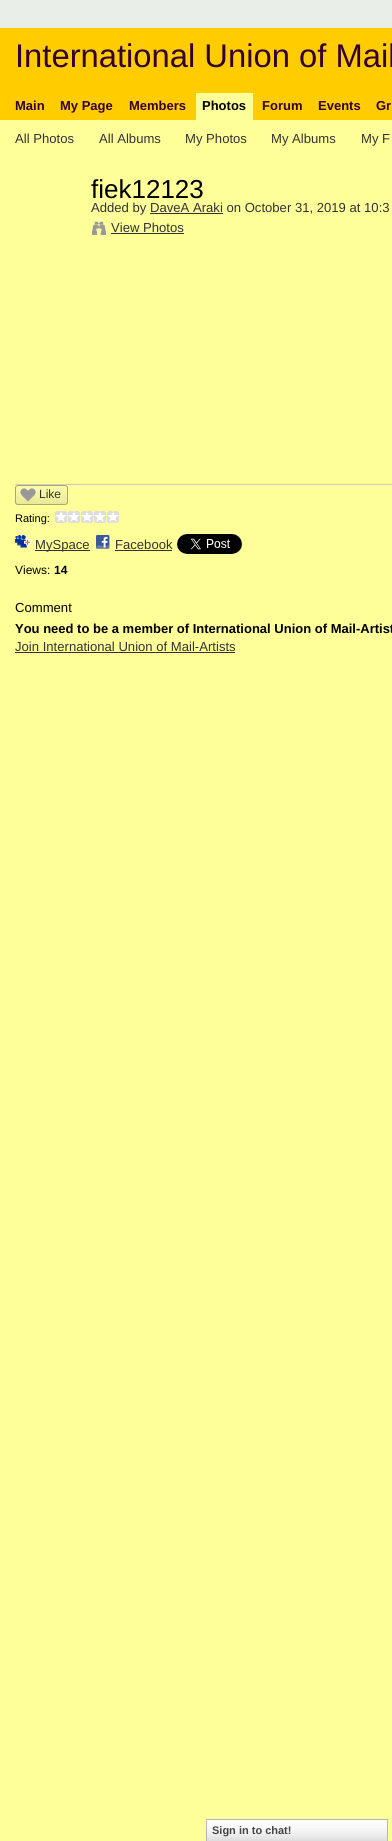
#include <cairo.h>
#include <math.h>
#include <stddef.h>

static cairo_t *ctx;

static void use_color(int r, int g, int b) {
    cairo_set_source_rgb(ctx, r / 255.0, g / 255.0, b / 255.0);
}

static void round_rect(double x, double y, double w, double h, double r) {
    cairo_new_sub_path(ctx);
    cairo_arc(ctx, x + w - r, y + h - r, r, 0, M_PI / 2);
    cairo_arc(ctx, x + r, y + h - r, r, M_PI / 2, M_PI);
    cairo_arc(ctx, x + r, y + r, r, M_PI, 1.5 * M_PI);
    cairo_arc(ctx, x + w - r, y + r, r, 1.5 * M_PI, 2 * M_PI);
    cairo_close_path(ctx);
}

static void picture(const char *path, double x, double y, double w, double h) {
    cairo_surface_t *image = cairo_image_surface_create_from_png(path);
    cairo_save(ctx);
    cairo_set_source_surface(ctx, image, x, y);
    cairo_rectangle(ctx, x, y, w, h);
    cairo_fill(ctx);
    cairo_restore(ctx);
    cairo_surface_destroy(image);
}

int main(void) {
    cairo_surface_t *surface = cairo_image_surface_create(CAIRO_FORMAT_RGB24, 392, 1841);
    ctx = cairo_create(surface);
    cairo_font_options_t *options = cairo_font_options_create();
    cairo_font_options_set_hint_metrics(options, CAIRO_HINT_METRICS_OFF);
    cairo_font_options_set_hint_style(options, CAIRO_HINT_STYLE_NONE);
    cairo_set_font_options(ctx, options);
    cairo_set_miter_limit(ctx, 4);
    use_color(233, 238, 232);
    cairo_paint(ctx);
    use_color(255, 204, 0);
    cairo_rectangle(ctx, 0, 28, 392, 92);
    cairo_fill(ctx);
    cairo_select_font_face(ctx, "Liberation Sans", CAIRO_FONT_SLANT_NORMAL, CAIRO_FONT_WEIGHT_NORMAL);
    cairo_set_font_size(ctx, 32.75);
    use_color(51, 0, 51);
    cairo_move_to(ctx, 15, 67);
    cairo_show_text(ctx, "International Union of Mail");
    cairo_select_font_face(ctx, "Liberation Sans", CAIRO_FONT_SLANT_NORMAL, CAIRO_FONT_WEIGHT_BOLD);
    cairo_set_font_size(ctx, 13);
    cairo_move_to(ctx, 15, 110);
    cairo_show_text(ctx, "Main");
    cairo_move_to(ctx, 60, 110);
    cairo_show_text(ctx, "My Page");
    cairo_move_to(ctx, 129, 110);
    cairo_show_text(ctx, "Members");
    use_color(255, 255, 153);
    cairo_rectangle(ctx, 196, 93, 57, 27);
    cairo_fill(ctx);
    use_color(0, 0, 0);
    cairo_move_to(ctx, 202, 110);
    cairo_show_text(ctx, "Photos");
    use_color(51, 0, 51);
    cairo_move_to(ctx, 262, 110);
    cairo_show_text(ctx, "Forum");
    cairo_move_to(ctx, 318, 110);
    cairo_show_text(ctx, "Events");
    cairo_move_to(ctx, 376, 110);
    cairo_show_text(ctx, "Gr");
    use_color(255, 255, 153);
    cairo_rectangle(ctx, 0, 120, 392, 1721);
    cairo_fill(ctx);
    cairo_select_font_face(ctx, "Liberation Sans", CAIRO_FONT_SLANT_NORMAL, CAIRO_FONT_WEIGHT_NORMAL);
    cairo_set_font_size(ctx, 13.1);
    use_color(51, 51, 51);
    cairo_move_to(ctx, 15, 143);
    cairo_show_text(ctx, "All Photos");
    cairo_move_to(ctx, 99, 143);
    cairo_show_text(ctx, "All Albums");
    cairo_move_to(ctx, 185, 143);
    cairo_show_text(ctx, "My Photos");
    cairo_move_to(ctx, 271, 143);
    cairo_show_text(ctx, "My Albums");
    cairo_move_to(ctx, 361, 143);
    cairo_show_text(ctx, "My F");
    cairo_set_font_size(ctx, 26);
    use_color(0, 0, 0);
    cairo_move_to(ctx, 91, 198);
    cairo_show_text(ctx, "fiek12123");
    cairo_set_font_size(ctx, 13.1);
    use_color(51, 51, 51);
    cairo_move_to(ctx, 91, 212);
    cairo_show_text(ctx, "Added by DaveA Araki on October 31, 2019 at 10:3");
    cairo_rectangle(ctx, 150, 213, 73, 1);
    cairo_fill(ctx);
    picture("img1.png", 92, 221, 14, 14);
    cairo_move_to(ctx, 111, 232);
    cairo_show_text(ctx, "View Photos");
    cairo_rectangle(ctx, 111, 233, 73, 1);
    cairo_fill(ctx);
    use_color(204, 204, 204);
    cairo_rectangle(ctx, 15, 484, 377, 1);
    cairo_fill(ctx);
    picture("img2.png", 15, 486, 53, 19);
    round_rect(15.5, 485.5, 52, 19, 2.5);
    use_color(170, 170, 102);
    cairo_set_line_width(ctx, 1);
    cairo_stroke(ctx);
    picture("img3.png", 20, 488, 16, 14);
    cairo_set_font_size(ctx, 12);
    use_color(51, 51, 51);
    cairo_move_to(ctx, 39, 498);
    cairo_show_text(ctx, "Like");
    cairo_set_font_size(ctx, 11);
    use_color(0, 0, 0);
    cairo_move_to(ctx, 15, 522);
    cairo_show_text(ctx, "Rating:");
    picture("img4.png", 55, 511, 64, 12);
    picture("img5.png", 15, 535, 16, 13);
    use_color(51, 51, 51);
    cairo_rectangle(ctx, 35, 550, 55, 1);
    cairo_fill(ctx);
    cairo_set_font_size(ctx, 13.1);
    cairo_move_to(ctx, 35, 549);
    cairo_show_text(ctx, "MySpace");
    picture("img6.png", 96, 535, 14, 14);
    cairo_move_to(ctx, 115, 549);
    cairo_show_text(ctx, "Facebook");
    cairo_rectangle(ctx, 115, 550, 57, 1);
    cairo_fill(ctx);
    picture("img7.png", 177, 534, 65, 20);
    cairo_set_font_size(ctx, 12);
    use_color(0, 0, 0);
    cairo_move_to(ctx, 15, 574);
    cairo_show_text(ctx, "Views:");
    cairo_select_font_face(ctx, "Liberation Sans", CAIRO_FONT_SLANT_NORMAL, CAIRO_FONT_WEIGHT_BOLD);
    cairo_move_to(ctx, 54, 574);
    cairo_show_text(ctx, "14");
    cairo_select_font_face(ctx, "Liberation Sans", CAIRO_FONT_SLANT_NORMAL, CAIRO_FONT_WEIGHT_NORMAL);
    cairo_set_font_size(ctx, 13.1);
    cairo_move_to(ctx, 15, 612);
    cairo_show_text(ctx, "Comment");
    cairo_select_font_face(ctx, "Liberation Sans", CAIRO_FONT_SLANT_NORMAL, CAIRO_FONT_WEIGHT_BOLD);
    cairo_set_font_size(ctx, 13);
    cairo_move_to(ctx, 15, 633);
    cairo_show_text(ctx, "You need to be a member of International Union of Mail-Artist");
    cairo_select_font_face(ctx, "Liberation Sans", CAIRO_FONT_SLANT_NORMAL, CAIRO_FONT_WEIGHT_NORMAL);
    cairo_set_font_size(ctx, 13.1);
    use_color(51, 51, 51);
    cairo_move_to(ctx, 15, 651);
    cairo_show_text(ctx, "Join International Union of Mail-Artists");
    cairo_rectangle(ctx, 15, 652, 220, 1);
    cairo_fill(ctx);
    picture("img8.png", 207, 1820, 180, 21);
    cairo_rectangle(ctx, 206.5, 1819.5, 181, 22);
    use_color(183, 183, 183);
    cairo_stroke(ctx);
    cairo_select_font_face(ctx, "Liberation Sans", CAIRO_FONT_SLANT_NORMAL, CAIRO_FONT_WEIGHT_BOLD);
    cairo_set_font_size(ctx, 11);
    use_color(69, 69, 69);
    cairo_move_to(ctx, 212, 1834);
    cairo_show_text(ctx, "Sign in to chat!");
    cairo_surface_write_to_png(surface, "result.png");
    cairo_font_options_destroy(options);
    cairo_destroy(ctx);
    cairo_surface_destroy(surface);
    return 0;
}
